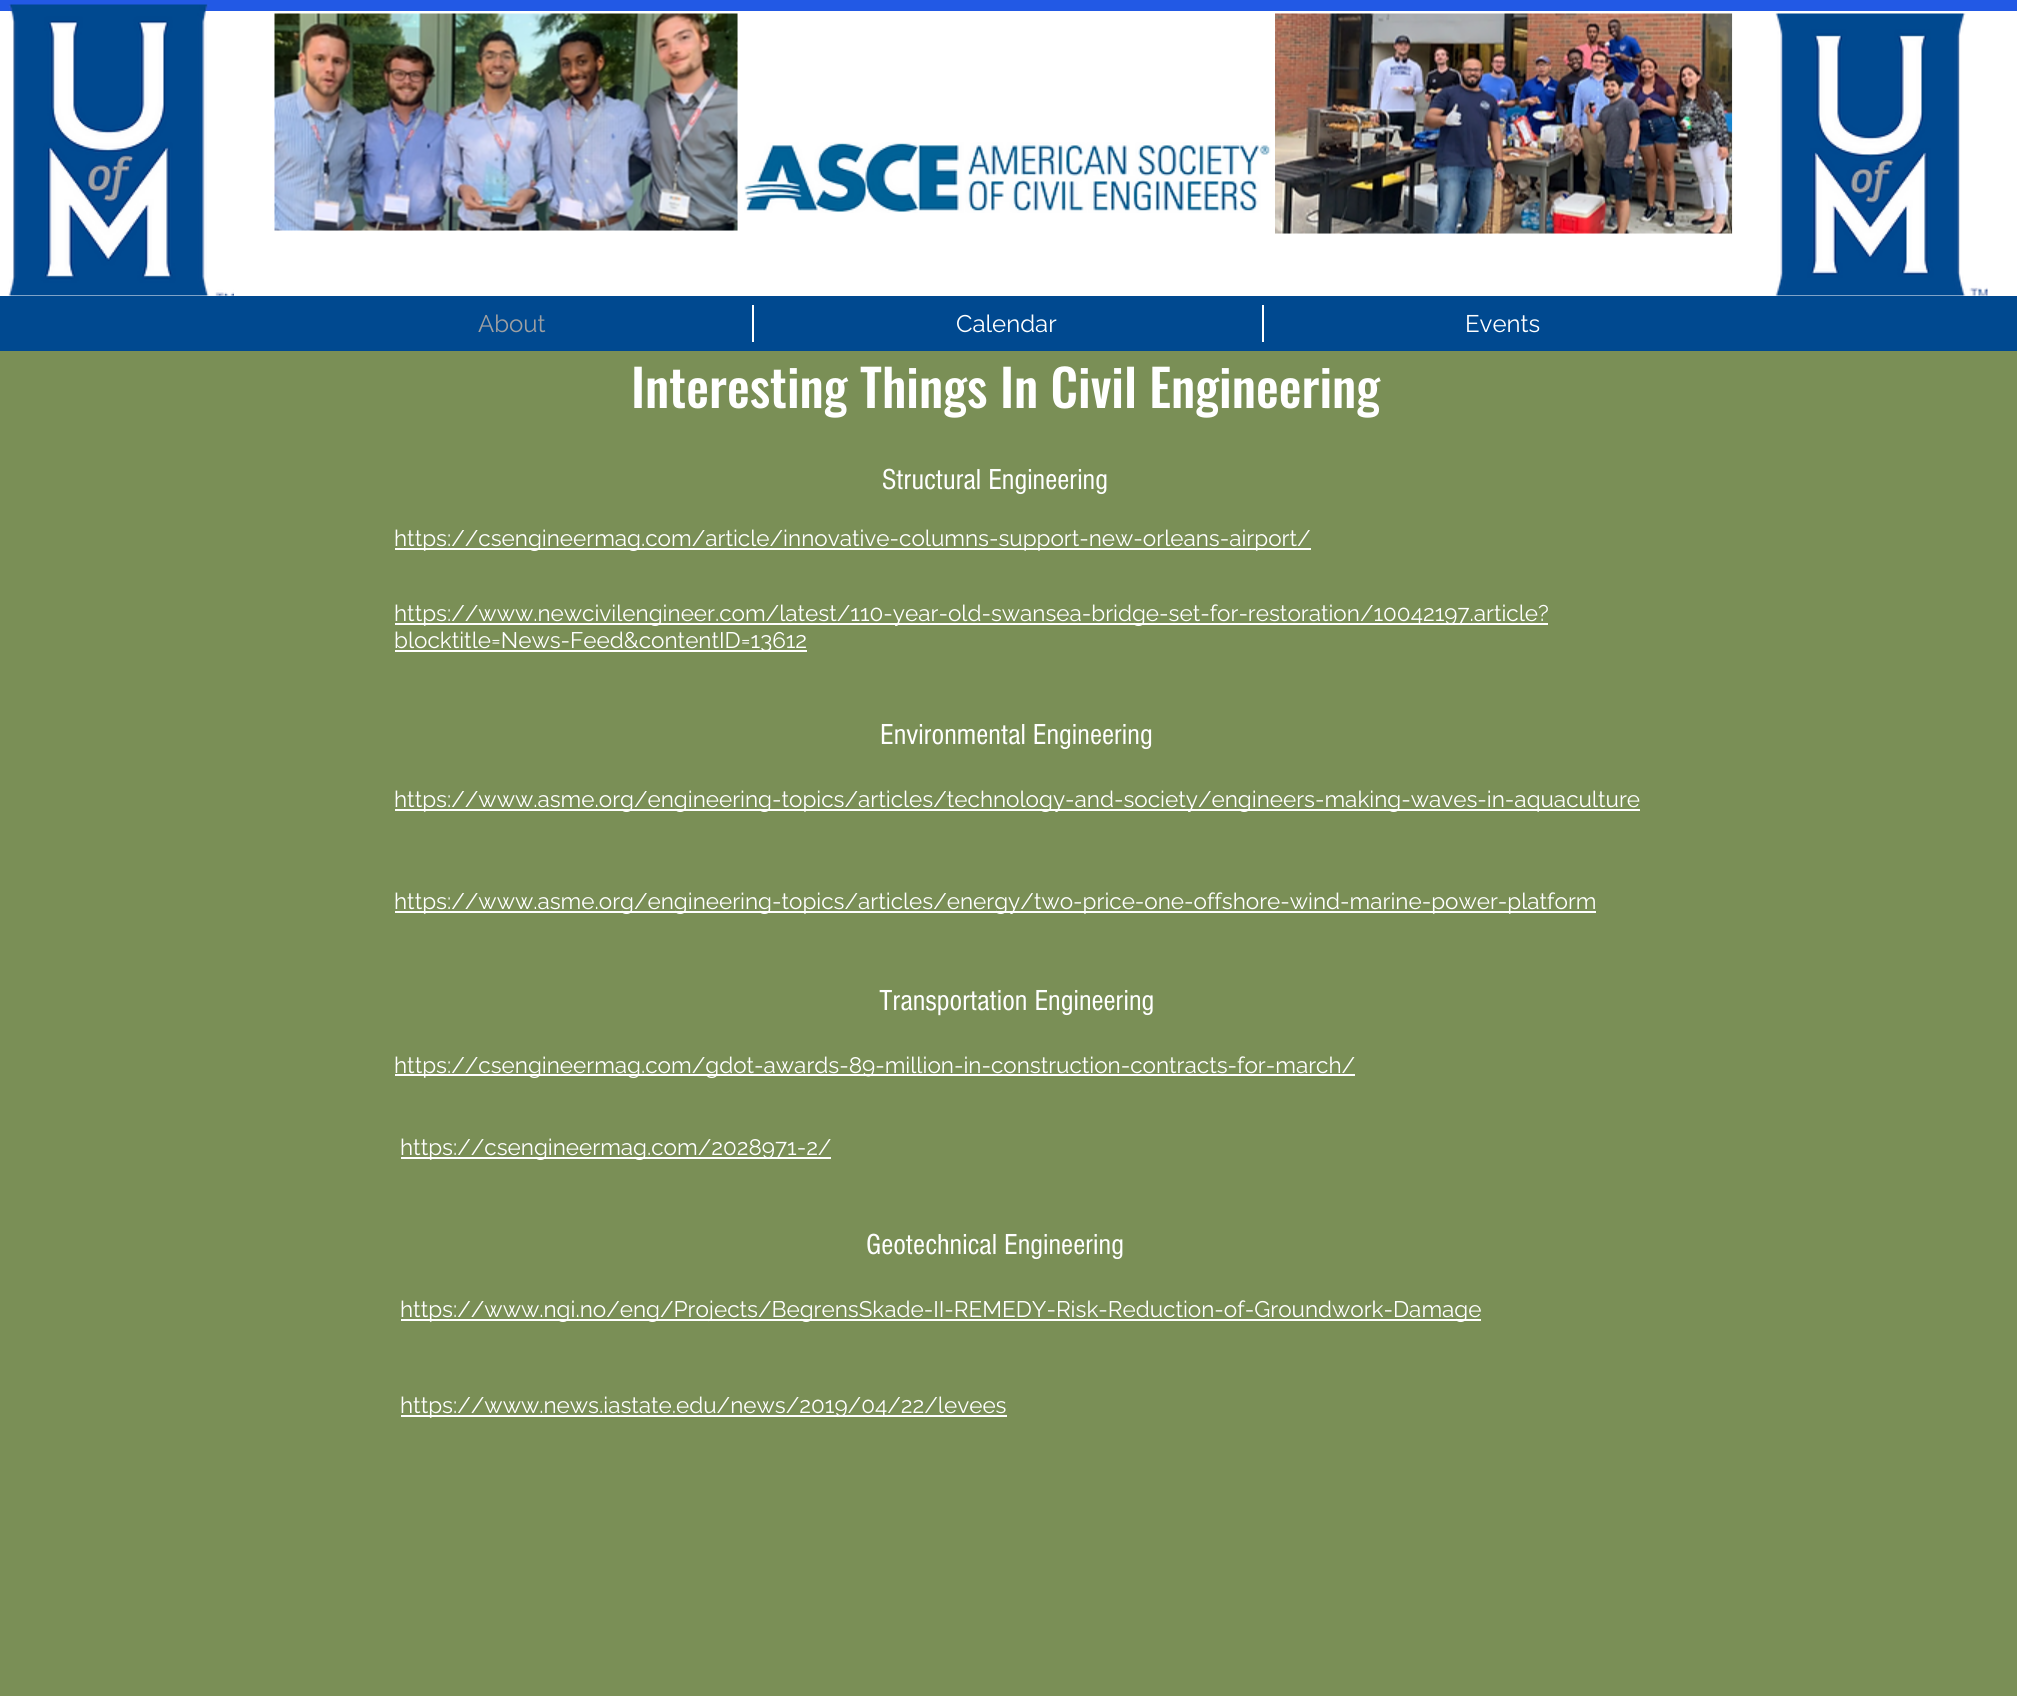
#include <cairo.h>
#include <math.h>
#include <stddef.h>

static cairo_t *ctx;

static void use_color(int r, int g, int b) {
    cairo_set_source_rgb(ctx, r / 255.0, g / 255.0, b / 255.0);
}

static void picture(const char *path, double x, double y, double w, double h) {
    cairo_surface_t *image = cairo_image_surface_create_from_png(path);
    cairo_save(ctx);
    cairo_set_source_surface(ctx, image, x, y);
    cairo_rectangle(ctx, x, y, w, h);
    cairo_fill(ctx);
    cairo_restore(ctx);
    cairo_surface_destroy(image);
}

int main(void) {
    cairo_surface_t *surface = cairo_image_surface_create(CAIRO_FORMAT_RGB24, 2017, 1696);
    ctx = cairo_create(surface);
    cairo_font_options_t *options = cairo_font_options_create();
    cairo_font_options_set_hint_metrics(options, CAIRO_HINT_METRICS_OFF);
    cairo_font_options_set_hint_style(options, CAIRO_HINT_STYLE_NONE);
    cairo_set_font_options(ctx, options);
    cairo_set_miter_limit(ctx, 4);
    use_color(122, 143, 86);
    cairo_paint(ctx);
    use_color(255, 255, 255);
    cairo_rectangle(ctx, 0, 11, 2017, 285);
    cairo_fill(ctx);
    use_color(34, 89, 229);
    cairo_rectangle(ctx, 0, 0, 2017, 11);
    cairo_fill(ctx);
    picture("img1.png", 8, 4, 226, 292);
    picture("img2.png", 274, 13, 464, 218);
    picture("img3.png", 744, 142, 527, 71);
    picture("img4.png", 1275, 13, 458, 221);
    picture("img5.png", 1775, 13, 213, 283);
    use_color(0, 73, 144);
    cairo_rectangle(ctx, 0, 296, 2017, 55);
    cairo_fill(ctx);
    cairo_select_font_face(ctx, "Raleway", CAIRO_FONT_SLANT_NORMAL, CAIRO_FONT_WEIGHT_NORMAL);
    cairo_set_font_size(ctx, 24);
    use_color(157, 159, 162);
    cairo_move_to(ctx, 478, 332);
    cairo_show_text(ctx, "About");
    use_color(255, 255, 255);
    cairo_rectangle(ctx, 752, 305, 2, 37);
    cairo_fill(ctx);
    cairo_move_to(ctx, 956, 332);
    cairo_show_text(ctx, "Calendar");
    cairo_rectangle(ctx, 1262, 305, 2, 37);
    cairo_fill(ctx);
    cairo_move_to(ctx, 1465, 332);
    cairo_show_text(ctx, "Events");
    cairo_select_font_face(ctx, "Oswald Medium", CAIRO_FONT_SLANT_NORMAL, CAIRO_FONT_WEIGHT_NORMAL);
    cairo_set_font_size(ctx, 51);
    cairo_move_to(ctx, 631, 408);
    cairo_show_text(ctx, "Interesting Things In Civil Engineering");
    cairo_select_font_face(ctx, "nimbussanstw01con", CAIRO_FONT_SLANT_NORMAL, CAIRO_FONT_WEIGHT_NORMAL);
    cairo_set_font_size(ctx, 30);
    cairo_move_to(ctx, 882, 489);
    cairo_show_text(ctx, "Structural Engineering");
    cairo_rectangle(ctx, 395, 548, 916, 2);
    cairo_fill(ctx);
    cairo_select_font_face(ctx, "Raleway", CAIRO_FONT_SLANT_NORMAL, CAIRO_FONT_WEIGHT_NORMAL);
    cairo_set_font_size(ctx, 22.5);
    cairo_move_to(ctx, 394, 546);
    cairo_show_text(ctx, "https://csengineermag.com/article/innovative-columns-support-new-orleans-airport/");
    cairo_rectangle(ctx, 395, 623, 1153, 2);
    cairo_fill(ctx);
    cairo_move_to(ctx, 394, 621);
    cairo_show_text(ctx, "https://www.newcivilengineer.com/latest/110-year-old-swansea-bridge-set-for-restoration/10042197.article?");
    cairo_rectangle(ctx, 395, 650, 412, 2);
    cairo_fill(ctx);
    cairo_move_to(ctx, 394, 648);
    cairo_show_text(ctx, "blocktitle=News-Feed&contentID=13612");
    cairo_select_font_face(ctx, "nimbussanstw01con", CAIRO_FONT_SLANT_NORMAL, CAIRO_FONT_WEIGHT_NORMAL);
    cairo_set_font_size(ctx, 30);
    cairo_move_to(ctx, 880, 744);
    cairo_show_text(ctx, "Environmental Engineering");
    cairo_rectangle(ctx, 395, 809, 1245, 2);
    cairo_fill(ctx);
    cairo_select_font_face(ctx, "Raleway", CAIRO_FONT_SLANT_NORMAL, CAIRO_FONT_WEIGHT_NORMAL);
    cairo_set_font_size(ctx, 22.5);
    cairo_move_to(ctx, 394, 807);
    cairo_show_text(ctx, "https://www.asme.org/engineering-topics/articles/technology-and-society/engineers-making-waves-in-aquaculture");
    cairo_rectangle(ctx, 395, 911, 1201, 2);
    cairo_fill(ctx);
    cairo_move_to(ctx, 394, 909);
    cairo_show_text(ctx, "https://www.asme.org/engineering-topics/articles/energy/two-price-one-offshore-wind-marine-power-platform");
    cairo_select_font_face(ctx, "nimbussanstw01con", CAIRO_FONT_SLANT_NORMAL, CAIRO_FONT_WEIGHT_NORMAL);
    cairo_set_font_size(ctx, 30);
    cairo_move_to(ctx, 879, 1010);
    cairo_show_text(ctx, "Transportation Engineering");
    cairo_rectangle(ctx, 395, 1074, 960, 2);
    cairo_fill(ctx);
    cairo_select_font_face(ctx, "Raleway", CAIRO_FONT_SLANT_NORMAL, CAIRO_FONT_WEIGHT_NORMAL);
    cairo_set_font_size(ctx, 22.5);
    cairo_move_to(ctx, 394, 1073);
    cairo_show_text(ctx, "https://csengineermag.com/gdot-awards-89-million-in-construction-contracts-for-march/");
    cairo_rectangle(ctx, 401, 1157, 430, 2);
    cairo_fill(ctx);
    cairo_move_to(ctx, 400, 1155);
    cairo_show_text(ctx, "https://csengineermag.com/2028971-2/");
    cairo_select_font_face(ctx, "nimbussanstw01con", CAIRO_FONT_SLANT_NORMAL, CAIRO_FONT_WEIGHT_NORMAL);
    cairo_set_font_size(ctx, 30);
    cairo_move_to(ctx, 866, 1254);
    cairo_show_text(ctx, "Geotechnical Engineering");
    cairo_rectangle(ctx, 401, 1319, 1080, 2);
    cairo_fill(ctx);
    cairo_select_font_face(ctx, "Raleway", CAIRO_FONT_SLANT_NORMAL, CAIRO_FONT_WEIGHT_NORMAL);
    cairo_set_font_size(ctx, 22.5);
    cairo_move_to(ctx, 400, 1317);
    cairo_show_text(ctx, "https://www.ngi.no/eng/Projects/BegrensSkade-II-REMEDY-Risk-Reduction-of-Groundwork-Damage");
    cairo_rectangle(ctx, 401, 1415, 606, 2);
    cairo_fill(ctx);
    cairo_move_to(ctx, 400, 1413);
    cairo_show_text(ctx, "https://www.news.iastate.edu/news/2019/04/22/levees");
    cairo_surface_write_to_png(surface, "result.png");
    cairo_font_options_destroy(options);
    cairo_destroy(ctx);
    cairo_surface_destroy(surface);
    return 0;
}
